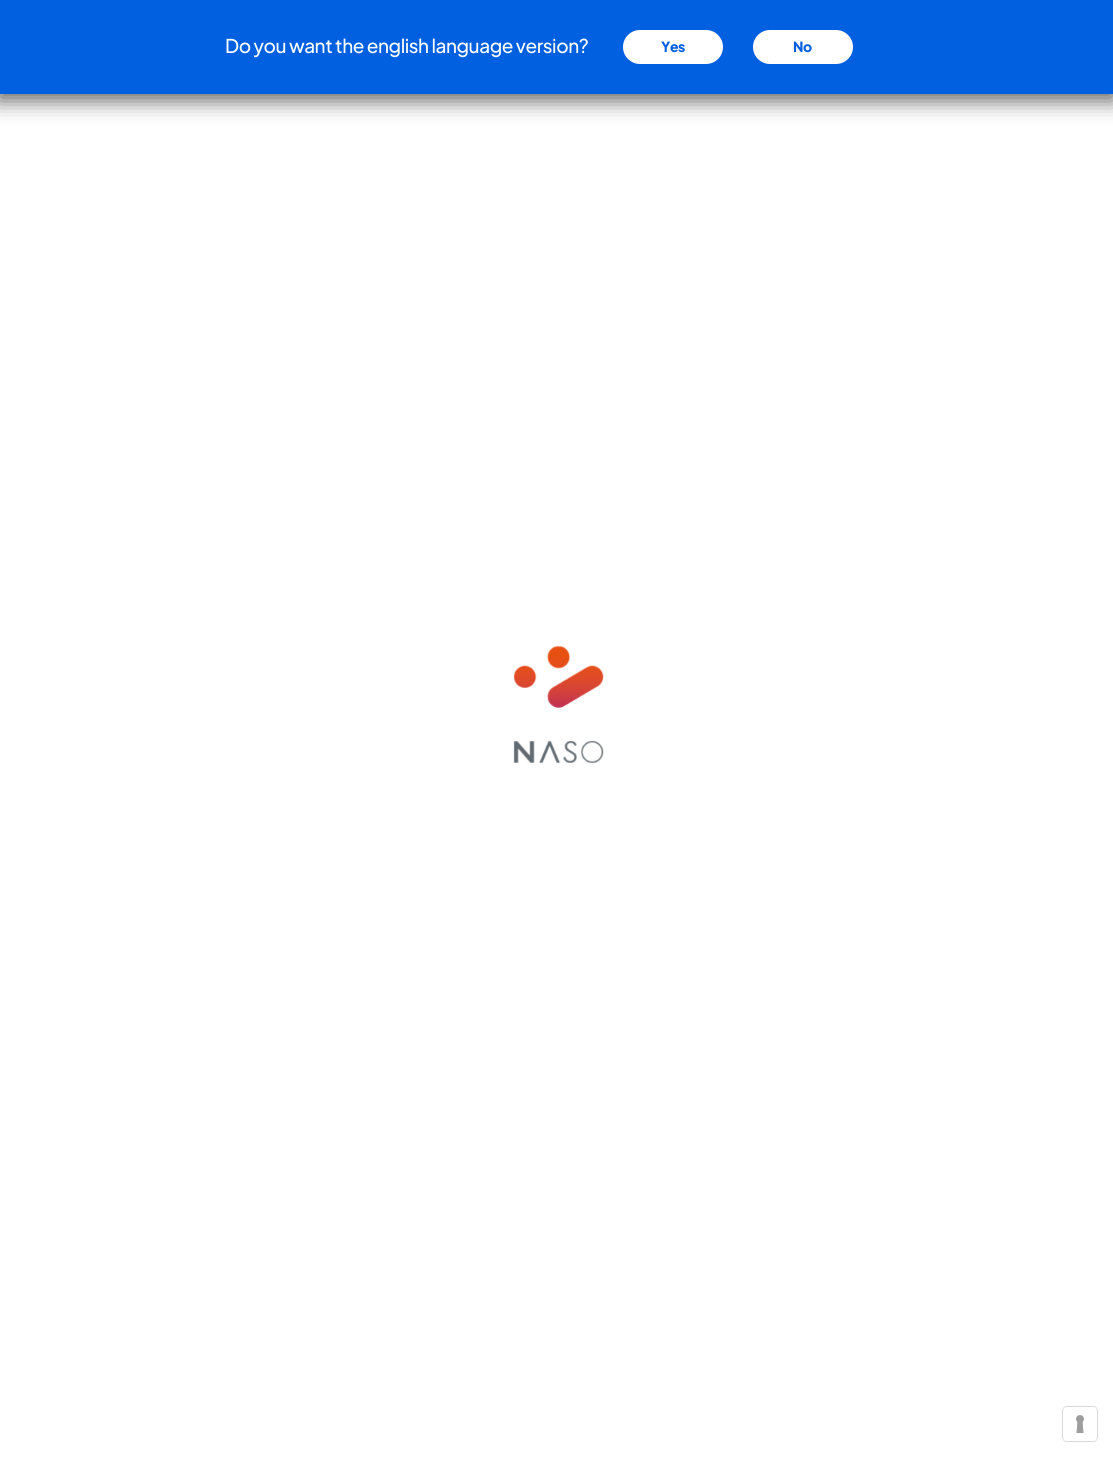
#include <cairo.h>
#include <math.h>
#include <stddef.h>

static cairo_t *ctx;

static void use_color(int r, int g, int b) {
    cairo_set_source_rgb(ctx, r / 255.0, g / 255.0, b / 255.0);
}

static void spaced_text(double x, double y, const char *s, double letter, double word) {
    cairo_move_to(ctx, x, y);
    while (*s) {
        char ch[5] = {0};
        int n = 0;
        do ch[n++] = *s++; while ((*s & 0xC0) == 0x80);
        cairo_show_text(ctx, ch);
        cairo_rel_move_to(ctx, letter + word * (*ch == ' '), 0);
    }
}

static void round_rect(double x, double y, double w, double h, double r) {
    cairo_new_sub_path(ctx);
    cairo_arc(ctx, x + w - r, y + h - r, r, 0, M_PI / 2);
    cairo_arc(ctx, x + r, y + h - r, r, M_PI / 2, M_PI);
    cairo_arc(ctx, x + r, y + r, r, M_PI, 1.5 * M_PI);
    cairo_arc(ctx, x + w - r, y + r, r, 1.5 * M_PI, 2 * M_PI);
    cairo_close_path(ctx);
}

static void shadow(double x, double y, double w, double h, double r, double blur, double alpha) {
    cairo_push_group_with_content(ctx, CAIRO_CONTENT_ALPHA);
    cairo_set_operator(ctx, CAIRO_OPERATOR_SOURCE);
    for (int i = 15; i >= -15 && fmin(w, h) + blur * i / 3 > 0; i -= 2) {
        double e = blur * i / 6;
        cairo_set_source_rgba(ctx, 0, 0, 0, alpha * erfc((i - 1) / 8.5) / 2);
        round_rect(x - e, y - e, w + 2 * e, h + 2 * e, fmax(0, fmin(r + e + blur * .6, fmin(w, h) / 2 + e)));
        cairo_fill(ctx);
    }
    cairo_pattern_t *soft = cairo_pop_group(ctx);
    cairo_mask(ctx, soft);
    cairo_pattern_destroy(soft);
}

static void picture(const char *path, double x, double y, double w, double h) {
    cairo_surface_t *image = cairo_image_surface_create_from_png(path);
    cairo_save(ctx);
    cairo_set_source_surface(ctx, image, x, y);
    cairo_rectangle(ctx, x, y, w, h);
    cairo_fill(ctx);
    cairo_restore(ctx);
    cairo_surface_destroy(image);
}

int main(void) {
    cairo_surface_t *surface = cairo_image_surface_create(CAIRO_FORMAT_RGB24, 1113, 1457);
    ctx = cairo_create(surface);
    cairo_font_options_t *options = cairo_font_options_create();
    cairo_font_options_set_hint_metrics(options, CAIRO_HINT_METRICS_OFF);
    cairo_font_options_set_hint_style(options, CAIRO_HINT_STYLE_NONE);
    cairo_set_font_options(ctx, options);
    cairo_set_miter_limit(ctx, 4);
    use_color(255, 255, 255);
    cairo_paint(ctx);
    use_color(0, 0, 0);
    shadow(-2, 3, 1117, 98, 0, 10.5, 0.6);
    use_color(1, 96, 224);
    cairo_rectangle(ctx, 0, 0, 1113, 94);
    cairo_fill(ctx);
    cairo_select_font_face(ctx, "Plus Jakarta Sans Medium", CAIRO_FONT_SLANT_NORMAL, CAIRO_FONT_WEIGHT_NORMAL);
    cairo_set_font_size(ctx, 19);
    use_color(255, 255, 255);
    spaced_text(225, 53, "Do you want the english language version?", -0.45, 0);
    round_rect(624, 31, 98, 32, 16);
    cairo_fill_preserve(ctx);
    cairo_stroke(ctx);
    cairo_select_font_face(ctx, "Plus Jakarta Sans ExtraBold", CAIRO_FONT_SLANT_NORMAL, CAIRO_FONT_WEIGHT_NORMAL);
    cairo_set_font_size(ctx, 14);
    use_color(1, 96, 224);
    spaced_text(661, 52, "Yes", -0.5, 0);
    use_color(255, 255, 255);
    round_rect(754, 31, 98, 32, 16);
    cairo_fill_preserve(ctx);
    cairo_stroke(ctx);
    use_color(1, 96, 224);
    spaced_text(793, 52, "No", -0.5, 0);
    picture("img1.png", 513, 645, 91, 118);
    round_rect(1062.5, 1406.5, 35, 35, 4.5);
    use_color(217, 217, 217);
    cairo_set_line_width(ctx, 1);
    cairo_stroke(ctx);
    use_color(255, 255, 255);
    round_rect(1063, 1407, 34, 34, 4);
    cairo_fill(ctx);
    picture("img2.png", 1076, 1415, 8, 18);
    cairo_surface_write_to_png(surface, "result.png");
    cairo_font_options_destroy(options);
    cairo_destroy(ctx);
    cairo_surface_destroy(surface);
    return 0;
}
